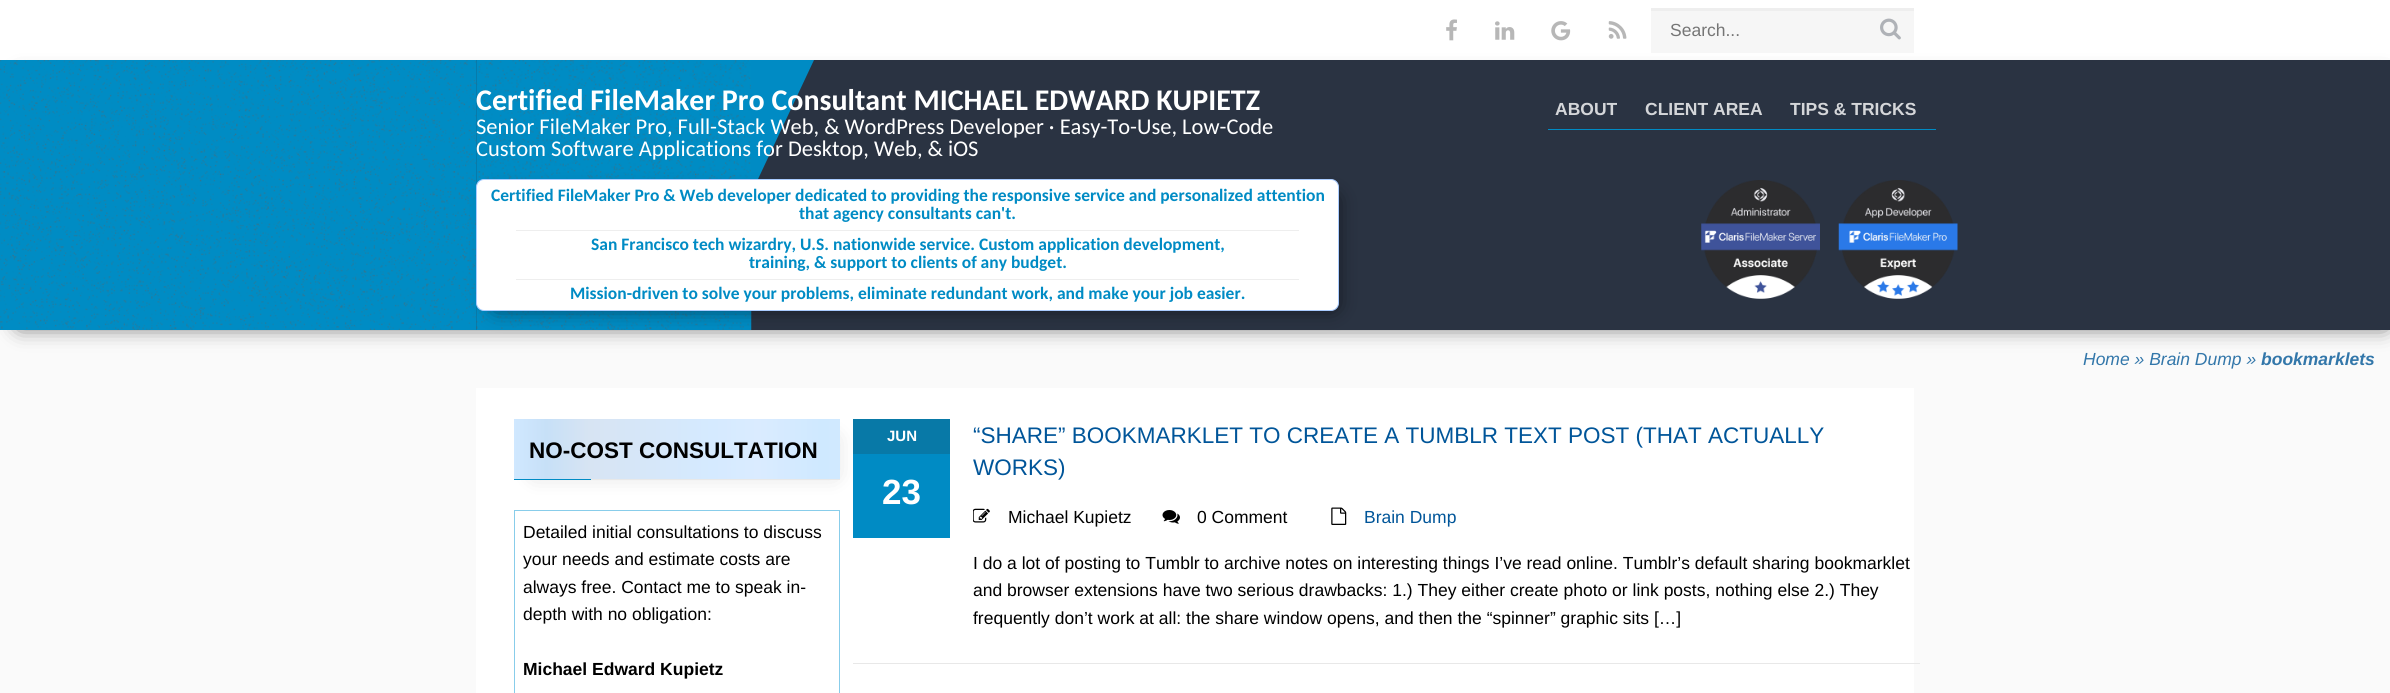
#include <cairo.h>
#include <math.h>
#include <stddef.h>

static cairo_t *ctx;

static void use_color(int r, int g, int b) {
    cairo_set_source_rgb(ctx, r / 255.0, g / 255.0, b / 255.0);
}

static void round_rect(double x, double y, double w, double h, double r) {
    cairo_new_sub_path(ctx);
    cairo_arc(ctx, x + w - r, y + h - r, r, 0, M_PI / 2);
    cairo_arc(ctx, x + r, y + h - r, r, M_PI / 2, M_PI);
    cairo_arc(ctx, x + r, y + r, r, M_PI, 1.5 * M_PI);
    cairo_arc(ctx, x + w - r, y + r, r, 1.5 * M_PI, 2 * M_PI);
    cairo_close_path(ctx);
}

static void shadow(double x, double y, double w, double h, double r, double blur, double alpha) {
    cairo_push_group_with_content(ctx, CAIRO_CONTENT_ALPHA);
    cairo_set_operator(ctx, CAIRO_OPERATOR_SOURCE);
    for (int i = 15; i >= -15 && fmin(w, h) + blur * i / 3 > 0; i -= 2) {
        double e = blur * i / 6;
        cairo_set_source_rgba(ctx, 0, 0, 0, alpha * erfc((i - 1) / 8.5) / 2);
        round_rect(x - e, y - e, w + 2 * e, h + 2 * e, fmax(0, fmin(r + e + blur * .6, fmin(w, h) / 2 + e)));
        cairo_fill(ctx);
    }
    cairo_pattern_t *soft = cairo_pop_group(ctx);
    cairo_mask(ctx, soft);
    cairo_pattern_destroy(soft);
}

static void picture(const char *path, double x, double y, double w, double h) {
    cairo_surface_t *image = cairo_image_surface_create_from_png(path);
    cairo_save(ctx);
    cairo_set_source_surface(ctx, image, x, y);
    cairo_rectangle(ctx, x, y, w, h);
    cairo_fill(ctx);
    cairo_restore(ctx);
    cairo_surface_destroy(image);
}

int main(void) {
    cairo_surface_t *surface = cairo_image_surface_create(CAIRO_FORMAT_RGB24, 2390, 693);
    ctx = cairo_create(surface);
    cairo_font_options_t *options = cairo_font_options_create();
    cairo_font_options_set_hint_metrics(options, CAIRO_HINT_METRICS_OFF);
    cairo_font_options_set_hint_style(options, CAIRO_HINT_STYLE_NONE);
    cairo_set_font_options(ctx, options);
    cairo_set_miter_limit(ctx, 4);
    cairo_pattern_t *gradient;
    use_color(250, 250, 250);
    cairo_paint(ctx);
    use_color(255, 255, 255);
    cairo_rectangle(ctx, 0, 0, 2390, 60);
    cairo_fill(ctx);
    picture("img1.png", 1446, 19, 11, 22);
    picture("img2.png", 1495, 21, 20, 19);
    picture("img3.png", 1551, 21, 20, 20);
    picture("img4.png", 1608, 21, 19, 18);
    use_color(246, 246, 246);
    cairo_rectangle(ctx, 1651, 11, 263, 42);
    cairo_fill(ctx);
    use_color(238, 238, 238);
    cairo_rectangle(ctx, 1651, 8, 263, 3);
    cairo_fill(ctx);
    cairo_select_font_face(ctx, "Liberation Sans", CAIRO_FONT_SLANT_NORMAL, CAIRO_FONT_WEIGHT_NORMAL);
    cairo_set_font_size(ctx, 17.5);
    use_color(117, 117, 117);
    cairo_move_to(ctx, 1670, 36);
    cairo_show_text(ctx, "Search...");
    picture("img5.png", 1880, 18, 21, 22);
    use_color(0, 0, 0);
    shadow(20, 80, 2365, 245, 0, 11, 0.75);
    use_color(42, 51, 66);
    cairo_rectangle(ctx, 476, 60, 1914, 270);
    cairo_fill(ctx);
    picture("img6.png", 476, 60, 276, 270);
    picture("img7.png", 0, 60, 477, 270);
    use_color(0, 139, 196);
    cairo_new_path(ctx);
    cairo_move_to(ctx, 751, 60);
    cairo_line_to(ctx, 814, 60);
    cairo_line_to(ctx, 751, 194);
    cairo_close_path(ctx);
    cairo_fill(ctx);
    cairo_select_font_face(ctx, "Carlito", CAIRO_FONT_SLANT_NORMAL, CAIRO_FONT_WEIGHT_BOLD);
    cairo_set_font_size(ctx, 30);
    use_color(255, 255, 255);
    cairo_move_to(ctx, 476, 110);
    cairo_show_text(ctx, "Certified FileMaker Pro Consultant MICHAEL EDWARD KUPIETZ");
    cairo_select_font_face(ctx, "Carlito", CAIRO_FONT_SLANT_NORMAL, CAIRO_FONT_WEIGHT_NORMAL);
    cairo_set_font_size(ctx, 22.5);
    cairo_move_to(ctx, 476, 134);
    cairo_show_text(ctx, "Senior FileMaker Pro, Full-Stack Web, & WordPress Developer · Easy-To-Use, Low-Code");
    cairo_move_to(ctx, 476, 156);
    cairo_show_text(ctx, "Custom Software Applications for Desktop, Web, & iOS");
    use_color(0, 0, 0);
    shadow(496, 199, 838, 107, 0, 11, 0.75);
    use_color(255, 255, 255);
    round_rect(476.5, 179.5, 862, 131, 7.5);
    cairo_fill_preserve(ctx);
    use_color(170, 204, 255);
    cairo_set_line_width(ctx, 1);
    cairo_stroke(ctx);
    cairo_select_font_face(ctx, "Carlito", CAIRO_FONT_SLANT_NORMAL, CAIRO_FONT_WEIGHT_BOLD);
    cairo_set_font_size(ctx, 17.5);
    use_color(0, 139, 196);
    cairo_move_to(ctx, 491, 201);
    cairo_show_text(ctx, "Certified FileMaker Pro & Web developer dedicated to providing the responsive service and personalized attention");
    cairo_move_to(ctx, 799, 219);
    cairo_show_text(ctx, "that agency consultants can't.");
    use_color(238, 238, 238);
    cairo_rectangle(ctx, 516, 230, 783, 1);
    cairo_fill(ctx);
    use_color(0, 139, 196);
    cairo_move_to(ctx, 591, 250);
    cairo_show_text(ctx, "San Francisco tech wizardry, U.S. nationwide service. Custom application development,");
    cairo_move_to(ctx, 749, 268);
    cairo_show_text(ctx, "training, & support to clients of any budget.");
    use_color(238, 238, 238);
    cairo_rectangle(ctx, 516, 279, 783, 1);
    cairo_fill(ctx);
    use_color(0, 139, 196);
    cairo_move_to(ctx, 570, 299);
    cairo_show_text(ctx, "Mission-driven to solve your problems, eliminate redundant work, and make your job easier.");
    cairo_select_font_face(ctx, "Liberation Sans", CAIRO_FONT_SLANT_NORMAL, CAIRO_FONT_WEIGHT_BOLD);
    use_color(212, 214, 217);
    cairo_move_to(ctx, 1555, 115);
    cairo_show_text(ctx, "ABOUT");
    use_color(0, 139, 196);
    cairo_rectangle(ctx, 1548, 129, 388, 1);
    cairo_fill(ctx);
    use_color(212, 214, 217);
    cairo_move_to(ctx, 1645, 115);
    cairo_show_text(ctx, "CLIENT AREA");
    cairo_move_to(ctx, 1790, 115);
    cairo_show_text(ctx, "TIPS & TRICKS");
    picture("img8.png", 1701, 180, 119, 119);
    picture("img9.png", 1838, 180, 120, 119);
    cairo_select_font_face(ctx, "Liberation Sans", CAIRO_FONT_SLANT_ITALIC, CAIRO_FONT_WEIGHT_NORMAL);
    use_color(51, 119, 170);
    cairo_move_to(ctx, 2083, 365);
    cairo_show_text(ctx, "Home » Brain Dump »");
    cairo_select_font_face(ctx, "Liberation Sans", CAIRO_FONT_SLANT_ITALIC, CAIRO_FONT_WEIGHT_BOLD);
    cairo_move_to(ctx, 2261, 365);
    cairo_show_text(ctx, "bookmarklets");
    use_color(255, 255, 255);
    cairo_rectangle(ctx, 476, 388, 1438, 305);
    cairo_fill(ctx);
    use_color(0, 0, 0);
    shadow(534, 439, 301, 36, 0, 11, 0.15);
    gradient = cairo_pattern_create_linear(514, 449, 840, 449);
    cairo_pattern_add_color_stop_rgba(gradient, 0, 0.816, 0.91, 1, 1);
    cairo_pattern_add_color_stop_rgba(gradient, 0.1, 0.78, 0.878, 0.969, 1);
    cairo_pattern_add_color_stop_rgba(gradient, 0.23, 0.843, 0.894, 0.953, 1);
    cairo_pattern_add_color_stop_rgba(gradient, 0.61, 0.835, 0.918, 1, 1);
    cairo_pattern_add_color_stop_rgba(gradient, 0.75, 0.855, 0.922, 1, 1);
    cairo_pattern_add_color_stop_rgba(gradient, 0.94, 0.812, 0.914, 1, 1);
    cairo_pattern_add_color_stop_rgba(gradient, 1, 0.816, 0.914, 1, 1);
    cairo_set_source(ctx, gradient);
    cairo_pattern_destroy(gradient);
    cairo_rectangle(ctx, 514, 419, 326, 60);
    cairo_fill(ctx);
    use_color(232, 232, 232);
    cairo_rectangle(ctx, 591, 479, 249, 1);
    cairo_fill(ctx);
    cairo_select_font_face(ctx, "Liberation Sans", CAIRO_FONT_SLANT_NORMAL, CAIRO_FONT_WEIGHT_BOLD);
    cairo_set_font_size(ctx, 22.5);
    use_color(0, 0, 0);
    cairo_move_to(ctx, 529, 458);
    cairo_show_text(ctx, "NO-COST CONSULTATION");
    use_color(0, 139, 196);
    cairo_rectangle(ctx, 514, 479, 77, 1);
    cairo_fill(ctx);
    cairo_rectangle(ctx, 514.5, 510.5, 325, 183);
    use_color(136, 205, 234);
    cairo_stroke(ctx);
    cairo_select_font_face(ctx, "Liberation Sans", CAIRO_FONT_SLANT_NORMAL, CAIRO_FONT_WEIGHT_NORMAL);
    cairo_set_font_size(ctx, 17.5);
    use_color(0, 0, 0);
    cairo_move_to(ctx, 523, 538);
    cairo_show_text(ctx, "Detailed initial consultations to discuss");
    cairo_move_to(ctx, 523, 565);
    cairo_show_text(ctx, "your needs and estimate costs are");
    cairo_move_to(ctx, 523, 593);
    cairo_show_text(ctx, "always free. Contact me to speak in-");
    cairo_move_to(ctx, 523, 620);
    cairo_show_text(ctx, "depth with no obligation:");
    cairo_select_font_face(ctx, "Liberation Sans", CAIRO_FONT_SLANT_NORMAL, CAIRO_FONT_WEIGHT_BOLD);
    cairo_move_to(ctx, 523, 675);
    cairo_show_text(ctx, "Michael Edward Kupietz");
    use_color(232, 232, 232);
    cairo_rectangle(ctx, 853, 663, 1067, 1);
    cairo_fill(ctx);
    use_color(8, 121, 167);
    cairo_rectangle(ctx, 853, 419, 97, 35);
    cairo_fill(ctx);
    cairo_set_font_size(ctx, 15);
    use_color(255, 255, 255);
    cairo_move_to(ctx, 887, 441);
    cairo_show_text(ctx, "JUN");
    use_color(0, 139, 196);
    cairo_rectangle(ctx, 853, 454, 97, 84);
    cairo_fill(ctx);
    cairo_set_font_size(ctx, 35);
    use_color(255, 255, 255);
    cairo_move_to(ctx, 882, 504);
    cairo_show_text(ctx, "23");
    cairo_select_font_face(ctx, "Liberation Sans", CAIRO_FONT_SLANT_NORMAL, CAIRO_FONT_WEIGHT_NORMAL);
    cairo_set_font_size(ctx, 22.5);
    use_color(0, 85, 153);
    cairo_move_to(ctx, 973, 443);
    cairo_show_text(ctx, "“SHARE” BOOKMARKLET TO CREATE A TUMBLR TEXT POST (THAT ACTUALLY");
    cairo_move_to(ctx, 973, 475);
    cairo_show_text(ctx, "WORKS)");
    picture("img10.png", 973, 508, 17, 15);
    cairo_set_font_size(ctx, 17.5);
    use_color(0, 0, 0);
    cairo_move_to(ctx, 1008, 523);
    cairo_show_text(ctx, "Michael Kupietz");
    picture("img11.png", 1162, 510, 18, 14);
    cairo_move_to(ctx, 1197, 523);
    cairo_show_text(ctx, "0 Comment");
    picture("img12.png", 1331, 507, 16, 18);
    use_color(0, 85, 153);
    cairo_move_to(ctx, 1364, 523);
    cairo_show_text(ctx, "Brain Dump");
    use_color(0, 0, 0);
    cairo_move_to(ctx, 973, 569);
    cairo_show_text(ctx, "I do a lot of posting to Tumblr to archive notes on interesting things I’ve read online. Tumblr’s default sharing bookmarklet");
    cairo_move_to(ctx, 973, 596);
    cairo_show_text(ctx, "and browser extensions have two serious drawbacks: 1.) They either create photo or link posts, nothing else 2.) They");
    cairo_move_to(ctx, 973, 624);
    cairo_show_text(ctx, "frequently don’t work at all: the share window opens, and then the “spinner” graphic sits […]");
    cairo_surface_write_to_png(surface, "result.png");
    cairo_font_options_destroy(options);
    cairo_destroy(ctx);
    cairo_surface_destroy(surface);
    return 0;
}
